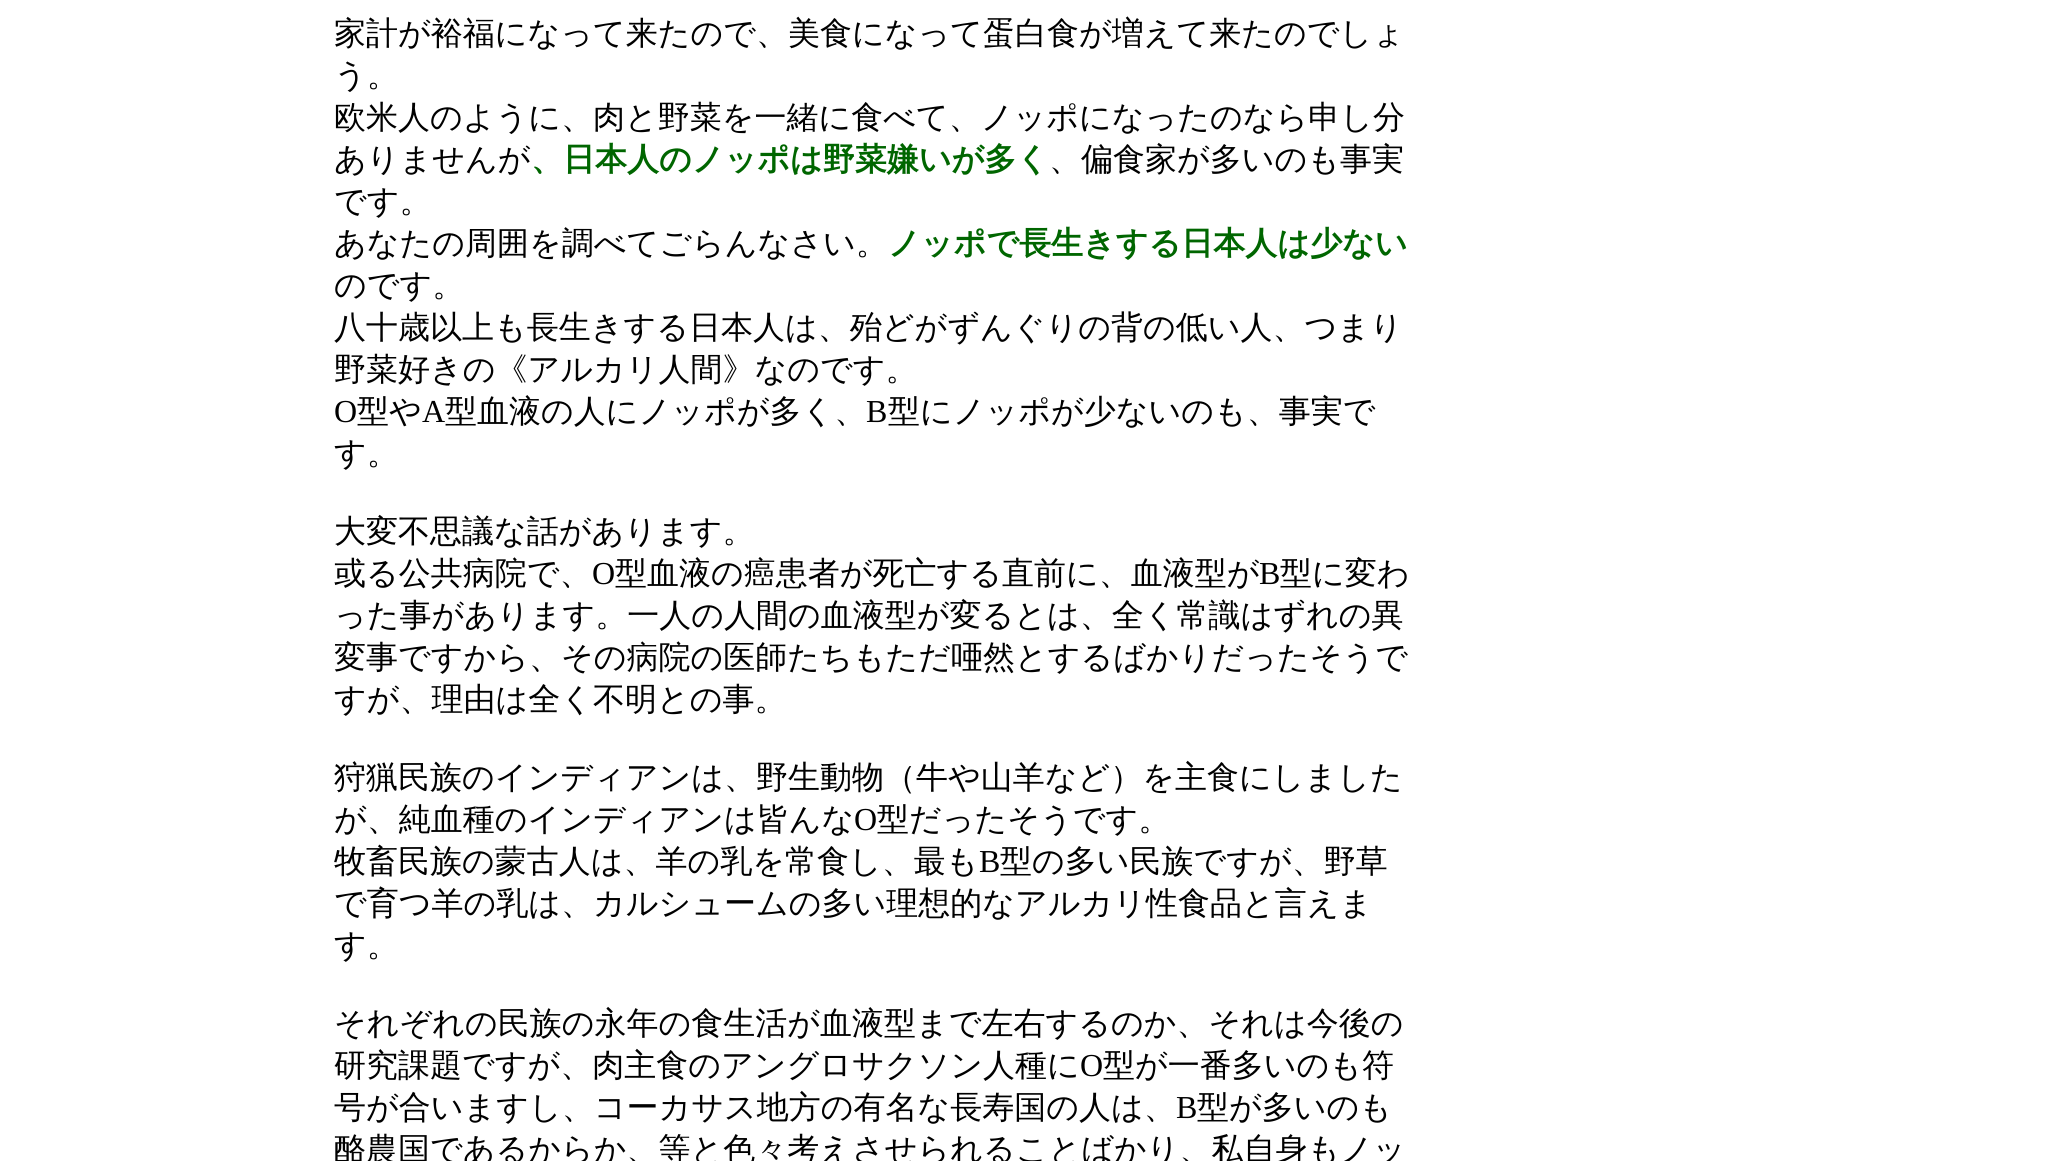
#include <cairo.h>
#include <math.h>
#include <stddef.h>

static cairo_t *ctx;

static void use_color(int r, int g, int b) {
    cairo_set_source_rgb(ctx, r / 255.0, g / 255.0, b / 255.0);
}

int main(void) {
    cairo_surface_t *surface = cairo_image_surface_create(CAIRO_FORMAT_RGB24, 2070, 1161);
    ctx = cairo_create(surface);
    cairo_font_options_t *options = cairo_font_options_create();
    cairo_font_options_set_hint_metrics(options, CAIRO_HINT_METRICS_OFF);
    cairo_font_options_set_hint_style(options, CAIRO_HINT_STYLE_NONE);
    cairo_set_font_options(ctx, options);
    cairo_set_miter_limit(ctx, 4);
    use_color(255, 255, 255);
    cairo_paint(ctx);
    cairo_select_font_face(ctx, "WenQuanYi Zen Hei Medium", CAIRO_FONT_SLANT_NORMAL, CAIRO_FONT_WEIGHT_NORMAL);
    cairo_set_font_size(ctx, 32);
    use_color(0, 0, 0);
    cairo_move_to(ctx, 334, 44);
    cairo_show_text(ctx, "家計が裕福になって来たので、美食になって蛋白食が増えて来たのでしょ");
    cairo_move_to(ctx, 334, 86);
    cairo_show_text(ctx, "う。");
    cairo_move_to(ctx, 334, 128);
    cairo_show_text(ctx, "欧米人のように、肉と野菜を一緒に食べて、ノッポになったのなら申し分");
    cairo_move_to(ctx, 334, 170);
    cairo_show_text(ctx, "ありませんが");
    cairo_select_font_face(ctx, "WenQuanYi Zen Hei", CAIRO_FONT_SLANT_NORMAL, CAIRO_FONT_WEIGHT_BOLD);
    use_color(0, 102, 0);
    cairo_move_to(ctx, 531, 170);
    cairo_show_text(ctx, "、日本人のノッポは野菜嫌いが多く");
    cairo_select_font_face(ctx, "WenQuanYi Zen Hei Medium", CAIRO_FONT_SLANT_NORMAL, CAIRO_FONT_WEIGHT_NORMAL);
    use_color(0, 0, 0);
    cairo_move_to(ctx, 1049, 170);
    cairo_show_text(ctx, "、偏食家が多いのも事実");
    cairo_move_to(ctx, 334, 212);
    cairo_show_text(ctx, "です。");
    cairo_move_to(ctx, 334, 254);
    cairo_show_text(ctx, "あなたの周囲を調べてごらんなさい。");
    cairo_select_font_face(ctx, "WenQuanYi Zen Hei", CAIRO_FONT_SLANT_NORMAL, CAIRO_FONT_WEIGHT_BOLD);
    use_color(0, 102, 0);
    cairo_move_to(ctx, 888, 254);
    cairo_show_text(ctx, "ノッポで長生きする日本人は少ない");
    cairo_select_font_face(ctx, "WenQuanYi Zen Hei Medium", CAIRO_FONT_SLANT_NORMAL, CAIRO_FONT_WEIGHT_NORMAL);
    use_color(0, 0, 0);
    cairo_move_to(ctx, 334, 296);
    cairo_show_text(ctx, "のです。");
    cairo_move_to(ctx, 334, 338);
    cairo_show_text(ctx, "八十歳以上も長生きする日本人は、殆どがずんぐりの背の低い人、つまり");
    cairo_move_to(ctx, 334, 380);
    cairo_show_text(ctx, "野菜好きの《アルカリ人間》なのです。");
    cairo_select_font_face(ctx, "Liberation Serif", CAIRO_FONT_SLANT_NORMAL, CAIRO_FONT_WEIGHT_NORMAL);
    cairo_move_to(ctx, 334, 422);
    cairo_show_text(ctx, "O");
    cairo_select_font_face(ctx, "WenQuanYi Zen Hei Medium", CAIRO_FONT_SLANT_NORMAL, CAIRO_FONT_WEIGHT_NORMAL);
    cairo_move_to(ctx, 357, 422);
    cairo_show_text(ctx, "型や");
    cairo_select_font_face(ctx, "Liberation Serif", CAIRO_FONT_SLANT_NORMAL, CAIRO_FONT_WEIGHT_NORMAL);
    cairo_move_to(ctx, 422, 422);
    cairo_show_text(ctx, "A");
    cairo_select_font_face(ctx, "WenQuanYi Zen Hei Medium", CAIRO_FONT_SLANT_NORMAL, CAIRO_FONT_WEIGHT_NORMAL);
    cairo_move_to(ctx, 445, 422);
    cairo_show_text(ctx, "型血液の人にノッポが多く、");
    cairo_select_font_face(ctx, "Liberation Serif", CAIRO_FONT_SLANT_NORMAL, CAIRO_FONT_WEIGHT_NORMAL);
    cairo_move_to(ctx, 866, 422);
    cairo_show_text(ctx, "B");
    cairo_select_font_face(ctx, "WenQuanYi Zen Hei Medium", CAIRO_FONT_SLANT_NORMAL, CAIRO_FONT_WEIGHT_NORMAL);
    cairo_move_to(ctx, 888, 422);
    cairo_show_text(ctx, "型にノッポが少ないのも、事実で");
    cairo_move_to(ctx, 334, 464);
    cairo_show_text(ctx, "す。");
    cairo_move_to(ctx, 334, 542);
    cairo_show_text(ctx, "大変不思議な話があります。");
    cairo_move_to(ctx, 334, 584);
    cairo_show_text(ctx, "或る公共病院で、");
    cairo_select_font_face(ctx, "Liberation Serif", CAIRO_FONT_SLANT_NORMAL, CAIRO_FONT_WEIGHT_NORMAL);
    cairo_move_to(ctx, 592, 584);
    cairo_show_text(ctx, "O");
    cairo_select_font_face(ctx, "WenQuanYi Zen Hei Medium", CAIRO_FONT_SLANT_NORMAL, CAIRO_FONT_WEIGHT_NORMAL);
    cairo_move_to(ctx, 615, 584);
    cairo_show_text(ctx, "型血液の癌患者が死亡する直前に、血液型が");
    cairo_select_font_face(ctx, "Liberation Serif", CAIRO_FONT_SLANT_NORMAL, CAIRO_FONT_WEIGHT_NORMAL);
    cairo_move_to(ctx, 1259, 584);
    cairo_show_text(ctx, "B");
    cairo_select_font_face(ctx, "WenQuanYi Zen Hei Medium", CAIRO_FONT_SLANT_NORMAL, CAIRO_FONT_WEIGHT_NORMAL);
    cairo_move_to(ctx, 1280, 584);
    cairo_show_text(ctx, "型に変わ");
    cairo_move_to(ctx, 334, 626);
    cairo_show_text(ctx, "った事があります。一人の人間の血液型が変るとは、全く常識はずれの異");
    cairo_move_to(ctx, 334, 668);
    cairo_show_text(ctx, "変事ですから、その病院の医師たちもただ唖然とするばかりだったそうで");
    cairo_move_to(ctx, 334, 710);
    cairo_show_text(ctx, "すが、理由は全く不明との事。");
    cairo_move_to(ctx, 334, 788);
    cairo_show_text(ctx, "狩猟民族のインディアンは、野生動物（牛や山羊など）を主食にしました");
    cairo_move_to(ctx, 334, 830);
    cairo_show_text(ctx, "が、純血種のインディアンは皆んな");
    cairo_select_font_face(ctx, "Liberation Serif", CAIRO_FONT_SLANT_NORMAL, CAIRO_FONT_WEIGHT_NORMAL);
    cairo_move_to(ctx, 854, 830);
    cairo_show_text(ctx, "O");
    cairo_select_font_face(ctx, "WenQuanYi Zen Hei Medium", CAIRO_FONT_SLANT_NORMAL, CAIRO_FONT_WEIGHT_NORMAL);
    cairo_move_to(ctx, 877, 830);
    cairo_show_text(ctx, "型だったそうです。");
    cairo_move_to(ctx, 334, 872);
    cairo_show_text(ctx, "牧畜民族の蒙古人は、羊の乳を常食し、最も");
    cairo_select_font_face(ctx, "Liberation Serif", CAIRO_FONT_SLANT_NORMAL, CAIRO_FONT_WEIGHT_NORMAL);
    cairo_move_to(ctx, 979, 872);
    cairo_show_text(ctx, "B");
    cairo_select_font_face(ctx, "WenQuanYi Zen Hei Medium", CAIRO_FONT_SLANT_NORMAL, CAIRO_FONT_WEIGHT_NORMAL);
    cairo_move_to(ctx, 1000, 872);
    cairo_show_text(ctx, "型の多い民族ですが、野草");
    cairo_move_to(ctx, 334, 914);
    cairo_show_text(ctx, "で育つ羊の乳は、カルシュームの多い理想的なアルカリ性食品と言えま");
    cairo_move_to(ctx, 334, 956);
    cairo_show_text(ctx, "す。");
    cairo_move_to(ctx, 334, 1034);
    cairo_show_text(ctx, "それぞれの民族の永年の食生活が血液型まで左右するのか、それは今後の");
    cairo_move_to(ctx, 334, 1076);
    cairo_show_text(ctx, "研究課題ですが、肉主食のアングロサクソン人種に");
    cairo_select_font_face(ctx, "Liberation Serif", CAIRO_FONT_SLANT_NORMAL, CAIRO_FONT_WEIGHT_NORMAL);
    cairo_move_to(ctx, 1080, 1076);
    cairo_show_text(ctx, "O");
    cairo_select_font_face(ctx, "WenQuanYi Zen Hei Medium", CAIRO_FONT_SLANT_NORMAL, CAIRO_FONT_WEIGHT_NORMAL);
    cairo_move_to(ctx, 1103, 1076);
    cairo_show_text(ctx, "型が一番多いのも符");
    cairo_move_to(ctx, 334, 1118);
    cairo_show_text(ctx, "号が合いますし、コーカサス地方の有名な長寿国の人は、");
    cairo_select_font_face(ctx, "Liberation Serif", CAIRO_FONT_SLANT_NORMAL, CAIRO_FONT_WEIGHT_NORMAL);
    cairo_move_to(ctx, 1176, 1118);
    cairo_show_text(ctx, "B");
    cairo_select_font_face(ctx, "WenQuanYi Zen Hei Medium", CAIRO_FONT_SLANT_NORMAL, CAIRO_FONT_WEIGHT_NORMAL);
    cairo_move_to(ctx, 1197, 1118);
    cairo_show_text(ctx, "型が多いのも");
    cairo_move_to(ctx, 334, 1160);
    cairo_show_text(ctx, "酪農国であるからか、等と色々考えさせられることばかり、私自身もノッ");
    cairo_surface_write_to_png(surface, "result.png");
    cairo_font_options_destroy(options);
    cairo_destroy(ctx);
    cairo_surface_destroy(surface);
    return 0;
}
